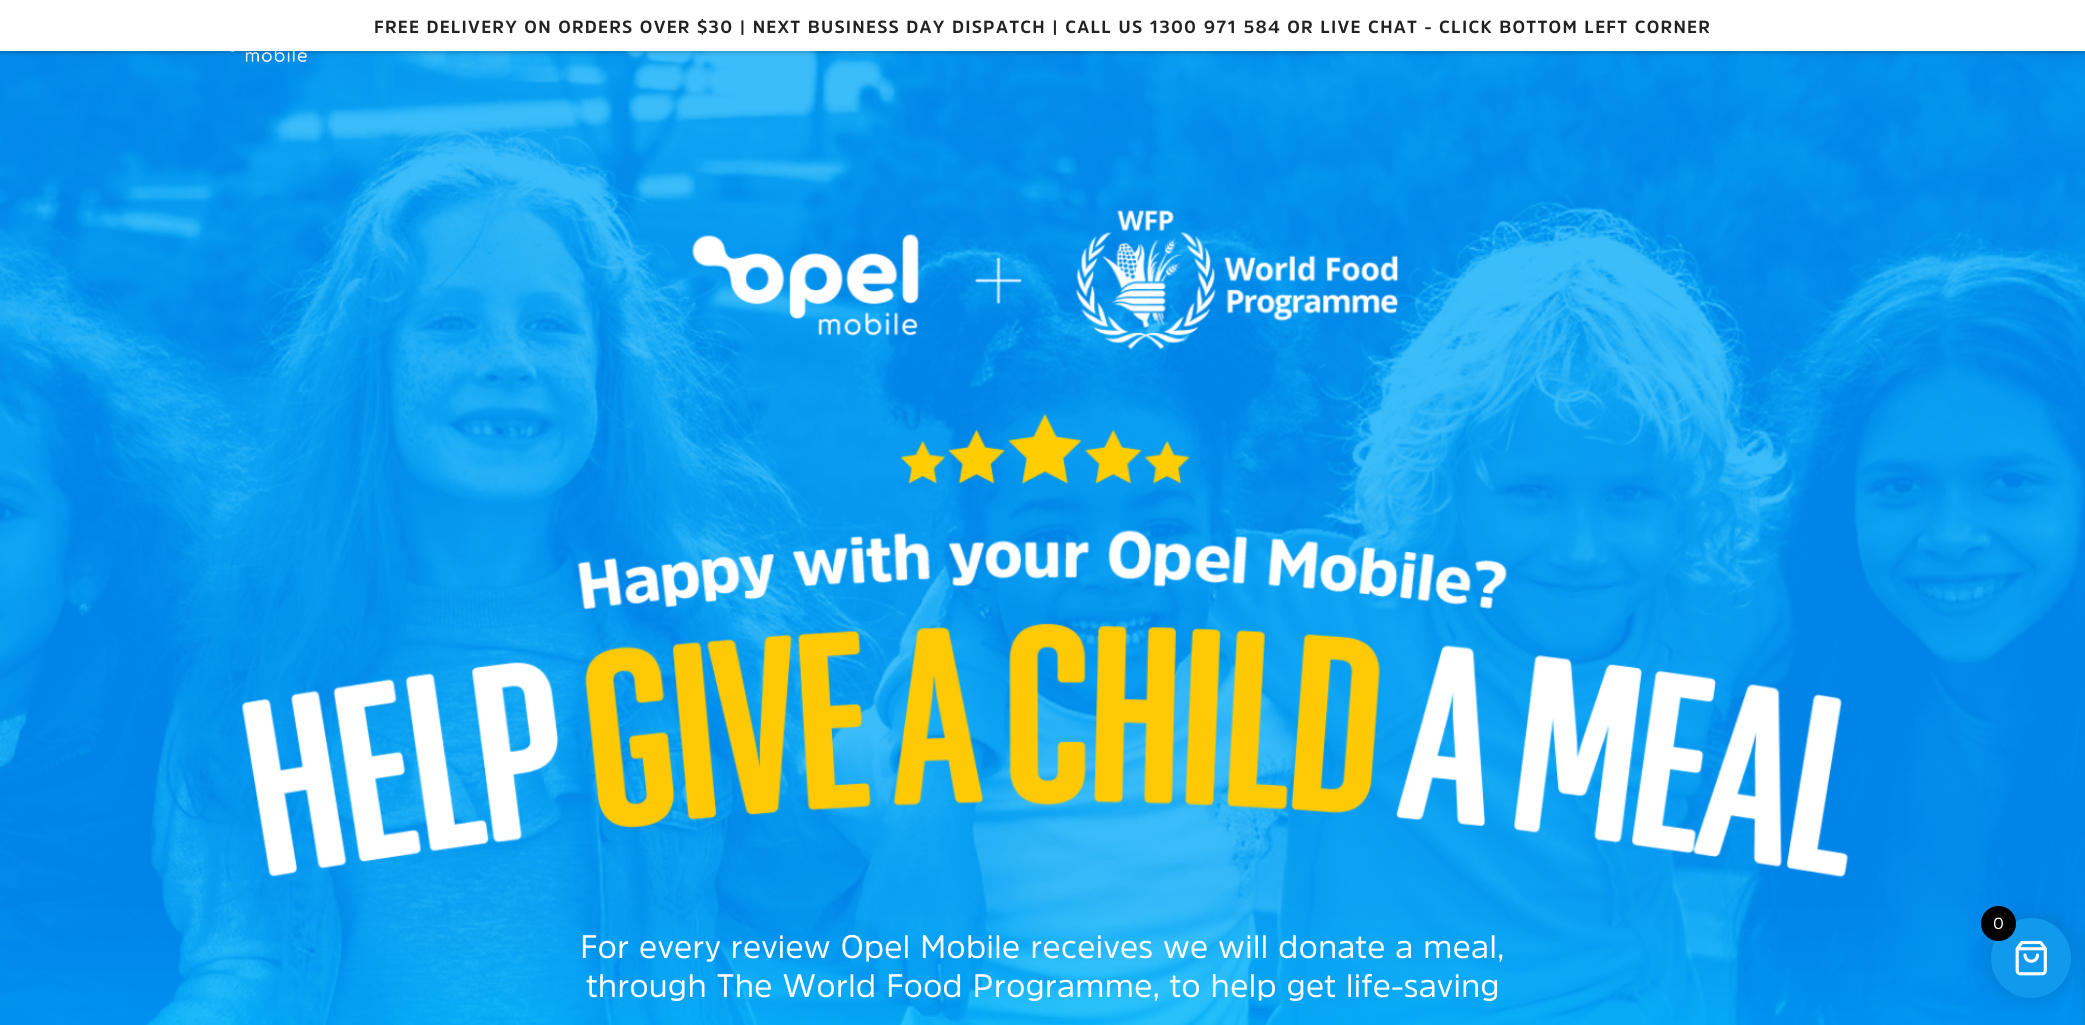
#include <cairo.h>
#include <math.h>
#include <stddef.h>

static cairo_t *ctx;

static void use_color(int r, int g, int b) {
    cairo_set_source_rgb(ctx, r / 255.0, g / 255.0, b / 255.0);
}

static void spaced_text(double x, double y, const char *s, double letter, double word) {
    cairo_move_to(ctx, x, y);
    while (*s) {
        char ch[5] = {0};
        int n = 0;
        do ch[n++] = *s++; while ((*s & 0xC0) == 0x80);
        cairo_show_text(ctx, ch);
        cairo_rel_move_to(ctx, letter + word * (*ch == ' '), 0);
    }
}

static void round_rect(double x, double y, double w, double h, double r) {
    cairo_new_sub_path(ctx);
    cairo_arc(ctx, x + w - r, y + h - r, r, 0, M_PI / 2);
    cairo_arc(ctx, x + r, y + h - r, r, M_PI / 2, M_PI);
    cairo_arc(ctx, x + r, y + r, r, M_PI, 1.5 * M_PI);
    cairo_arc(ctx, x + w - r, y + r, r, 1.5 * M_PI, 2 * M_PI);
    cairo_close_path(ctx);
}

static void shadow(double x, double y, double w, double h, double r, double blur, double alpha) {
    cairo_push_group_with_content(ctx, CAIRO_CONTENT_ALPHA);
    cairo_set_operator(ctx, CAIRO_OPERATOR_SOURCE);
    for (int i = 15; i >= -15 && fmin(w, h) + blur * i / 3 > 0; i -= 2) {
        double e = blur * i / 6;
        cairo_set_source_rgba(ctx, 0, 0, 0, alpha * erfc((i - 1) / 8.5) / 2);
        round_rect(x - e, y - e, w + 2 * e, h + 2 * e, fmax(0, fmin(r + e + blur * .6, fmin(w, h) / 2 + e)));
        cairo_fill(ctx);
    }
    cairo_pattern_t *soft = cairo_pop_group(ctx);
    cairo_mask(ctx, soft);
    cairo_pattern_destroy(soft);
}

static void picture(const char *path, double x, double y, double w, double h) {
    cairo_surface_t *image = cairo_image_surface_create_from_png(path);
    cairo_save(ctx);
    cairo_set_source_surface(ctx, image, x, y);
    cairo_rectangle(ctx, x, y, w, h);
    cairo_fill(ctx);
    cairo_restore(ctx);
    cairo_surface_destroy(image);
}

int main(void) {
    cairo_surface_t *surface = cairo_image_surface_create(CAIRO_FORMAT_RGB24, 2085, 1025);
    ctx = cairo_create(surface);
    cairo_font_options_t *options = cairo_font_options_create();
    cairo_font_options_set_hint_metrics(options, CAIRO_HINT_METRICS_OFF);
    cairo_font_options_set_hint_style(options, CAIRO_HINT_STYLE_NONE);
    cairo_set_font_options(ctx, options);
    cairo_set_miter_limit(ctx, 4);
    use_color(255, 255, 255);
    cairo_paint(ctx);
    picture("img3.png", 0, 51, 2085, 974);
    picture("img1.png", 230, 51, 77, 11);
    use_color(0, 0, 0);
    shadow(0, 1, 2085, 52, 0, 0.5, 0.05);
    shadow(0, 1, 2085, 52, 0, 2.5, 0.15);
    use_color(255, 255, 255);
    cairo_rectangle(ctx, 0, 0, 2085, 51);
    cairo_fill(ctx);
    cairo_select_font_face(ctx, "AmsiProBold", CAIRO_FONT_SLANT_NORMAL, CAIRO_FONT_WEIGHT_BOLD);
    cairo_set_font_size(ctx, 17.5);
    use_color(34, 34, 34);
    spaced_text(374, 33, "FREE DELIVERY ON ORDERS OVER $30 | NEXT BUSINESS DAY DISPATCH | CALL US 1300 971 584 OR LIVE CHAT - CLICK BOTTOM LEFT CORNER", 1.25, 0);
    use_color(0, 0, 0);
    shadow(1989, 915, 85, 85, 42.5, 9.5, 0.1);
    shadow(2085, 935, 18, 89, 0, 6, 0.1);
    use_color(17, 153, 238);
    cairo_arc(ctx, 2031, 958, 40, 0, 2 * M_PI);
    cairo_fill(ctx);
    picture("img2.png", 2015, 940, 32, 36);
    use_color(0, 0, 0);
    cairo_arc(ctx, 1998.5, 923.5, 17.5, 0, 2 * M_PI);
    cairo_fill(ctx);
    cairo_select_font_face(ctx, "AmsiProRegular", CAIRO_FONT_SLANT_NORMAL, CAIRO_FONT_WEIGHT_NORMAL);
    cairo_set_font_size(ctx, 16);
    use_color(255, 255, 255);
    cairo_move_to(ctx, 1993, 929);
    cairo_show_text(ctx, "0");
    picture("img4.png", 242, 210, 1607, 668);
    cairo_set_font_size(ctx, 32.5);
    cairo_move_to(ctx, 580, 958);
    cairo_show_text(ctx, "For every review Opel Mobile receives we will donate a meal,");
    cairo_move_to(ctx, 586, 997);
    cairo_show_text(ctx, "through The World Food Programme, to help get life-saving");
    cairo_surface_write_to_png(surface, "result.png");
    cairo_font_options_destroy(options);
    cairo_destroy(ctx);
    cairo_surface_destroy(surface);
    return 0;
}
